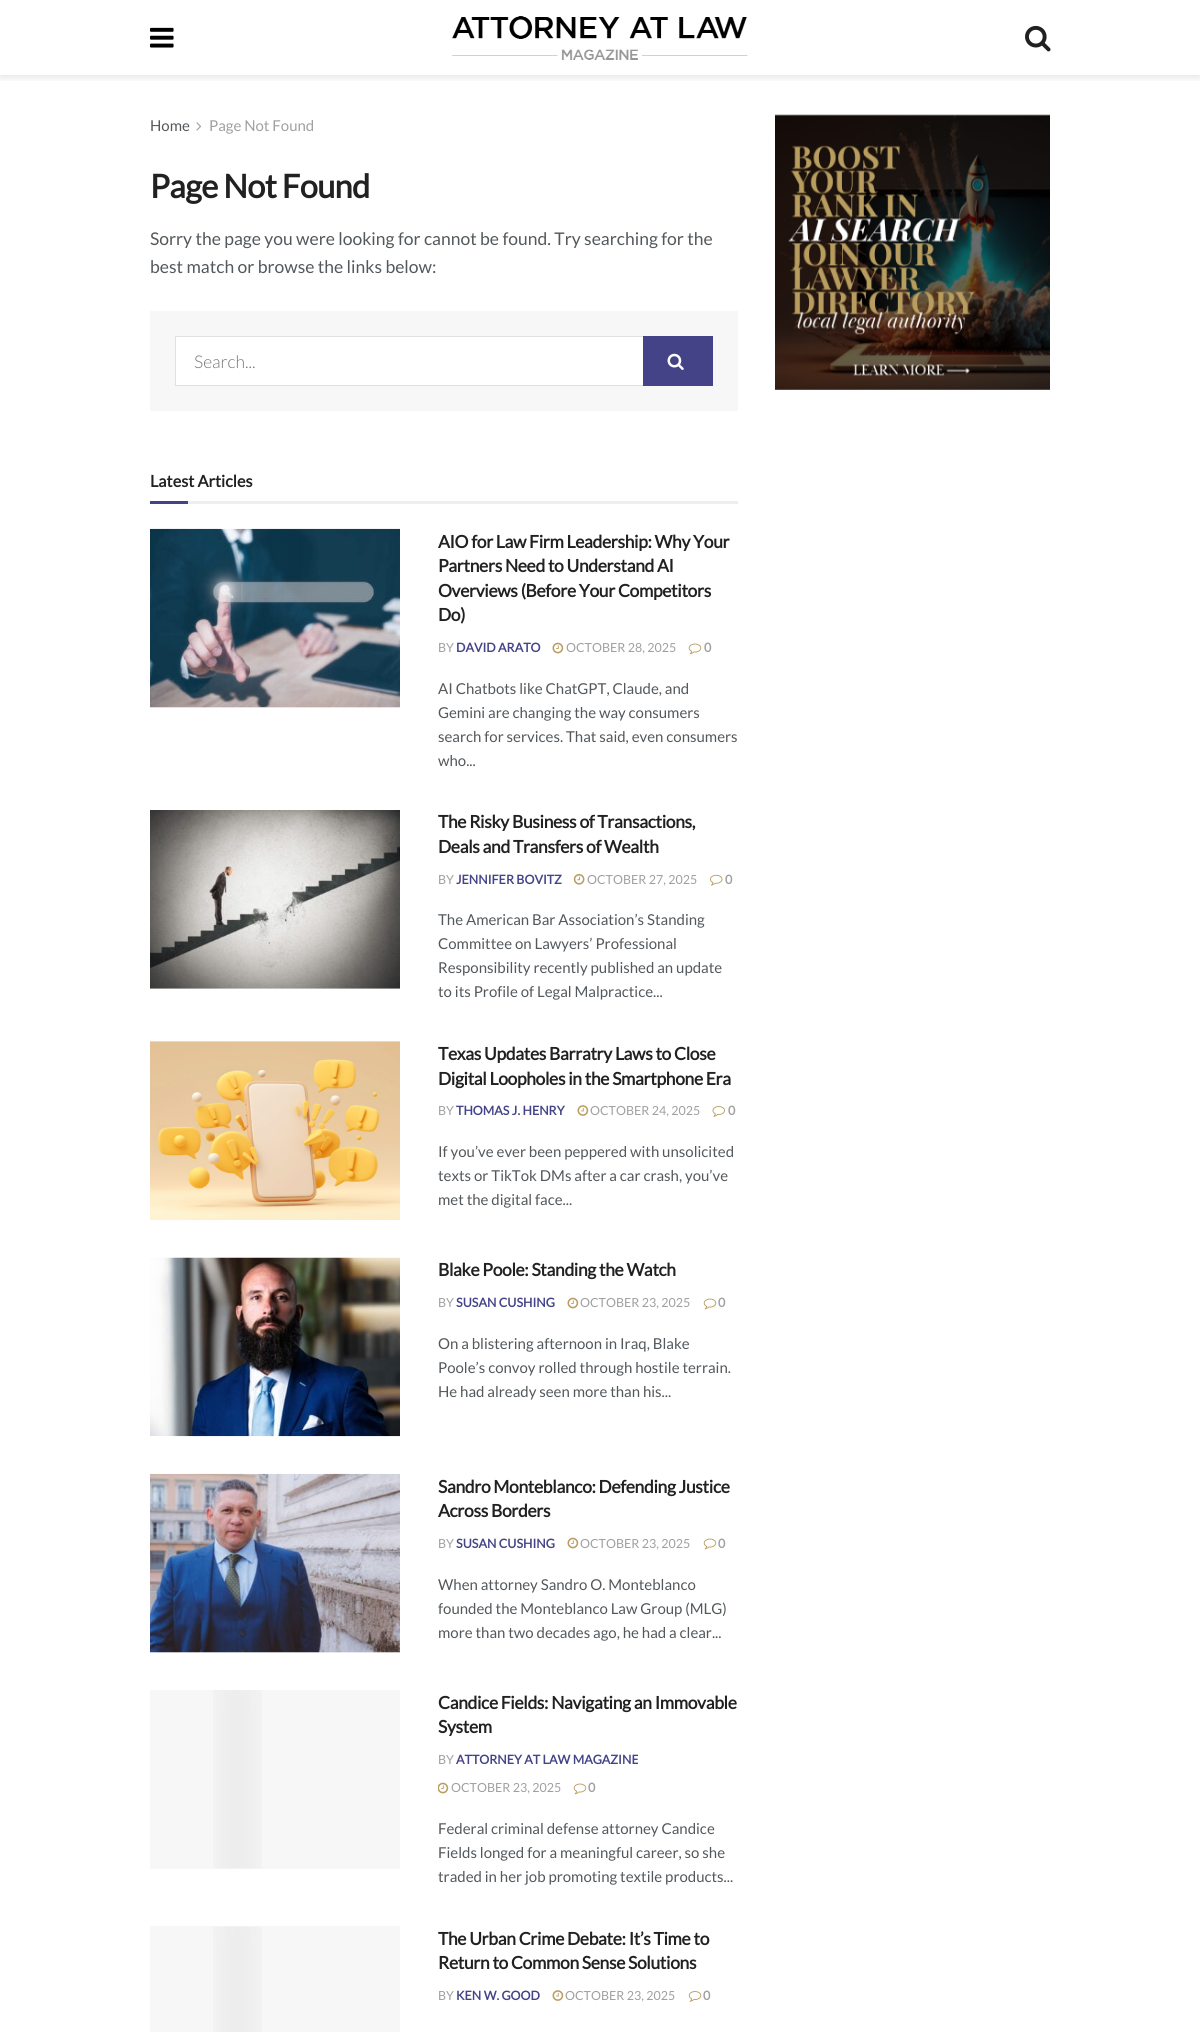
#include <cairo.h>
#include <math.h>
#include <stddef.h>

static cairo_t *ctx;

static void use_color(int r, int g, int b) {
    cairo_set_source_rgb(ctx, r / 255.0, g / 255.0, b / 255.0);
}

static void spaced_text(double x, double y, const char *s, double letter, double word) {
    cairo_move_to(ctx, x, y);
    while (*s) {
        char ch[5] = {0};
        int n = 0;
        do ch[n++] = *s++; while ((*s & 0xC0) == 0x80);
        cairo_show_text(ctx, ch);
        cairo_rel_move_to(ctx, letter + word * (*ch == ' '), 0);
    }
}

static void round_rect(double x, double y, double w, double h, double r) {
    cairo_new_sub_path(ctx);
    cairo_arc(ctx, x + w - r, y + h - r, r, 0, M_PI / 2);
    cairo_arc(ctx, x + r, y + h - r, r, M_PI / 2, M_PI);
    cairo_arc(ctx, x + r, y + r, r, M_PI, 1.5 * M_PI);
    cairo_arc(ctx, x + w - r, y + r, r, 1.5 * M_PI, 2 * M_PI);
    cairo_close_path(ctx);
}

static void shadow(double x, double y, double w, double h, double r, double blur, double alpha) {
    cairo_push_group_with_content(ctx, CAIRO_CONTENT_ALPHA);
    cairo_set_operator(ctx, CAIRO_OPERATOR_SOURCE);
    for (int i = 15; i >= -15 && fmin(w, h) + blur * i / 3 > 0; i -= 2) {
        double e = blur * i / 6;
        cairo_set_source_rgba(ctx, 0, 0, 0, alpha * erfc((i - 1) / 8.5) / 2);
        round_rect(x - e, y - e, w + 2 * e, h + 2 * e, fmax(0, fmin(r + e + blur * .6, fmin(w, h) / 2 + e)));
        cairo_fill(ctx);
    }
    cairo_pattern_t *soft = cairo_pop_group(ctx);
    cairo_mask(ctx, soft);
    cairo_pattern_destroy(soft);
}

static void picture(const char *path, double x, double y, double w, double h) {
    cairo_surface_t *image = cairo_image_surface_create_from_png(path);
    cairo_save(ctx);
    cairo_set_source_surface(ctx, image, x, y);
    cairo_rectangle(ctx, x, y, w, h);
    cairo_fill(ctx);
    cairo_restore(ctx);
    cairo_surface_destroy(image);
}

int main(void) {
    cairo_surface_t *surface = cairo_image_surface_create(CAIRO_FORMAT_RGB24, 1200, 2032);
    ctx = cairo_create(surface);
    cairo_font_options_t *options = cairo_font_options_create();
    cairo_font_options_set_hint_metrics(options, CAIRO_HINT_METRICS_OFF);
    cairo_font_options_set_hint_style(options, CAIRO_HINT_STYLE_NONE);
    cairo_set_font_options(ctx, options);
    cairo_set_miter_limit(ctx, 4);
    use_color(255, 255, 255);
    cairo_paint(ctx);
    cairo_save(ctx);
    cairo_rectangle(ctx, 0, 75, 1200, 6);
    cairo_clip(ctx);
    use_color(0, 0, 0);
    shadow(0, 3, 1200, 75, 0, 4, 0.1);
    cairo_restore(ctx);
    picture("img1.png", 150, 27, 24, 21);
    picture("img2.png", 451, 16, 297, 44);
    picture("img3.png", 1025, 25, 26, 27);
    cairo_select_font_face(ctx, "Lato", CAIRO_FONT_SLANT_NORMAL, CAIRO_FONT_WEIGHT_NORMAL);
    cairo_set_font_size(ctx, 15);
    use_color(83, 88, 92);
    cairo_move_to(ctx, 150, 131);
    cairo_show_text(ctx, "Home");
    picture("img4.png", 196, 122, 6, 9);
    use_color(160, 160, 160);
    cairo_move_to(ctx, 209, 131);
    cairo_show_text(ctx, "Page Not Found");
    cairo_select_font_face(ctx, "Lato", CAIRO_FONT_SLANT_NORMAL, CAIRO_FONT_WEIGHT_BOLD);
    cairo_set_font_size(ctx, 32.5);
    use_color(33, 33, 33);
    spaced_text(150, 198, "Page Not Found", -0.6, 0);
    cairo_select_font_face(ctx, "Lato", CAIRO_FONT_SLANT_NORMAL, CAIRO_FONT_WEIGHT_NORMAL);
    cairo_set_font_size(ctx, 17.5);
    use_color(83, 88, 92);
    cairo_move_to(ctx, 150, 245);
    cairo_show_text(ctx, "Sorry the page you were looking for cannot be found. Try searching for the");
    cairo_move_to(ctx, 150, 273);
    cairo_show_text(ctx, "best match or browse the links below:");
    use_color(247, 247, 247);
    cairo_rectangle(ctx, 150, 311, 588, 100);
    cairo_fill(ctx);
    use_color(255, 255, 255);
    cairo_rectangle(ctx, 176, 337, 467, 48);
    cairo_fill(ctx);
    cairo_rectangle(ctx, 175.5, 336.5, 537, 49);
    use_color(224, 224, 224);
    cairo_set_line_width(ctx, 1);
    cairo_stroke(ctx);
    cairo_select_font_face(ctx, "Lato Light", CAIRO_FONT_SLANT_NORMAL, CAIRO_FONT_WEIGHT_NORMAL);
    use_color(117, 117, 117);
    cairo_move_to(ctx, 194, 368);
    cairo_show_text(ctx, "Search...");
    use_color(68, 67, 136);
    cairo_rectangle(ctx, 643, 336, 70, 50);
    cairo_fill(ctx);
    picture("img5.png", 667, 353, 17, 17);
    use_color(238, 238, 238);
    cairo_rectangle(ctx, 188, 501, 550, 3);
    cairo_fill(ctx);
    cairo_select_font_face(ctx, "Lato", CAIRO_FONT_SLANT_NORMAL, CAIRO_FONT_WEIGHT_BOLD);
    cairo_set_font_size(ctx, 16.25);
    use_color(33, 33, 33);
    cairo_move_to(ctx, 150, 487);
    cairo_show_text(ctx, "Latest Articles");
    use_color(68, 67, 136);
    cairo_rectangle(ctx, 150, 501, 38, 3);
    cairo_fill(ctx);
    use_color(247, 247, 247);
    cairo_rectangle(ctx, 150, 707, 250, 1);
    cairo_fill(ctx);
    picture("img6.png", 150, 528, 250, 180);
    cairo_set_font_size(ctx, 17.5);
    use_color(33, 33, 33);
    spaced_text(438, 548, "AIO for Law Firm Leadership: Why Your", -0.35, 0);
    spaced_text(438, 572, "Partners Need to Understand AI", -0.35, 0);
    spaced_text(438, 597, "Overviews (Before Your Competitors", -0.35, 0);
    spaced_text(438, 621, "Do)", -0.35, 0);
    cairo_select_font_face(ctx, "Lato", CAIRO_FONT_SLANT_NORMAL, CAIRO_FONT_WEIGHT_NORMAL);
    cairo_set_font_size(ctx, 12.5);
    use_color(160, 160, 160);
    cairo_move_to(ctx, 438, 652);
    cairo_show_text(ctx, "BY");
    cairo_select_font_face(ctx, "Lato", CAIRO_FONT_SLANT_NORMAL, CAIRO_FONT_WEIGHT_BOLD);
    use_color(68, 67, 136);
    cairo_move_to(ctx, 456, 652);
    cairo_show_text(ctx, "DAVID ARATO");
    picture("img7.png", 552, 642, 12, 12);
    cairo_select_font_face(ctx, "Lato", CAIRO_FONT_SLANT_NORMAL, CAIRO_FONT_WEIGHT_NORMAL);
    use_color(160, 160, 160);
    cairo_move_to(ctx, 566, 652);
    cairo_show_text(ctx, "OCTOBER 28, 2025");
    picture("img8.png", 688, 643, 14, 12);
    cairo_select_font_face(ctx, "Lato", CAIRO_FONT_SLANT_NORMAL, CAIRO_FONT_WEIGHT_BOLD);
    cairo_move_to(ctx, 704, 652);
    cairo_show_text(ctx, "0");
    cairo_select_font_face(ctx, "Lato", CAIRO_FONT_SLANT_NORMAL, CAIRO_FONT_WEIGHT_NORMAL);
    cairo_set_font_size(ctx, 15);
    use_color(83, 88, 92);
    cairo_move_to(ctx, 438, 694);
    cairo_show_text(ctx, "AI Chatbots like ChatGPT, Claude, and");
    cairo_move_to(ctx, 438, 718);
    cairo_show_text(ctx, "Gemini are changing the way consumers");
    cairo_move_to(ctx, 438, 742);
    cairo_show_text(ctx, "search for services. That said, even consumers");
    cairo_move_to(ctx, 438, 766);
    cairo_show_text(ctx, "who...");
    use_color(247, 247, 247);
    cairo_rectangle(ctx, 150, 988, 250, 1);
    cairo_fill(ctx);
    picture("img9.png", 150, 810, 250, 179);
    cairo_select_font_face(ctx, "Lato", CAIRO_FONT_SLANT_NORMAL, CAIRO_FONT_WEIGHT_BOLD);
    cairo_set_font_size(ctx, 17.5);
    use_color(33, 33, 33);
    spaced_text(438, 828, "The Risky Business of Transactions,", -0.35, 0);
    spaced_text(438, 853, "Deals and Transfers of Wealth", -0.35, 0);
    cairo_select_font_face(ctx, "Lato", CAIRO_FONT_SLANT_NORMAL, CAIRO_FONT_WEIGHT_NORMAL);
    cairo_set_font_size(ctx, 12.5);
    use_color(160, 160, 160);
    cairo_move_to(ctx, 438, 884);
    cairo_show_text(ctx, "BY");
    cairo_select_font_face(ctx, "Lato", CAIRO_FONT_SLANT_NORMAL, CAIRO_FONT_WEIGHT_BOLD);
    use_color(68, 67, 136);
    cairo_move_to(ctx, 456, 884);
    cairo_show_text(ctx, "JENNIFER BOVITZ");
    picture("img10.png", 573, 873, 12, 12);
    cairo_select_font_face(ctx, "Lato", CAIRO_FONT_SLANT_NORMAL, CAIRO_FONT_WEIGHT_NORMAL);
    use_color(160, 160, 160);
    cairo_move_to(ctx, 587, 884);
    cairo_show_text(ctx, "OCTOBER 27, 2025");
    picture("img11.png", 710, 874, 13, 12);
    cairo_select_font_face(ctx, "Lato", CAIRO_FONT_SLANT_NORMAL, CAIRO_FONT_WEIGHT_BOLD);
    cairo_move_to(ctx, 725, 884);
    cairo_show_text(ctx, "0");
    cairo_select_font_face(ctx, "Lato", CAIRO_FONT_SLANT_NORMAL, CAIRO_FONT_WEIGHT_NORMAL);
    cairo_set_font_size(ctx, 15);
    use_color(83, 88, 92);
    cairo_move_to(ctx, 438, 925);
    cairo_show_text(ctx, "The American Bar Association’s Standing");
    cairo_move_to(ctx, 438, 949);
    cairo_show_text(ctx, "Committee on Lawyers’ Professional");
    cairo_move_to(ctx, 438, 973);
    cairo_show_text(ctx, "Responsibility recently published an update");
    cairo_move_to(ctx, 438, 997);
    cairo_show_text(ctx, "to its Profile of Legal Malpractice...");
    use_color(247, 247, 247);
    cairo_rectangle(ctx, 150, 1041, 250, 1);
    cairo_fill(ctx);
    picture("img12.png", 150, 1041, 250, 179);
    cairo_select_font_face(ctx, "Lato", CAIRO_FONT_SLANT_NORMAL, CAIRO_FONT_WEIGHT_BOLD);
    cairo_set_font_size(ctx, 17.5);
    use_color(33, 33, 33);
    spaced_text(438, 1060, "Texas Updates Barratry Laws to Close", -0.35, 0);
    spaced_text(438, 1085, "Digital Loopholes in the Smartphone Era", -0.35, 0);
    cairo_select_font_face(ctx, "Lato", CAIRO_FONT_SLANT_NORMAL, CAIRO_FONT_WEIGHT_NORMAL);
    cairo_set_font_size(ctx, 12.5);
    use_color(160, 160, 160);
    cairo_move_to(ctx, 438, 1115);
    cairo_show_text(ctx, "BY");
    cairo_select_font_face(ctx, "Lato", CAIRO_FONT_SLANT_NORMAL, CAIRO_FONT_WEIGHT_BOLD);
    use_color(68, 67, 136);
    cairo_move_to(ctx, 456, 1115);
    cairo_show_text(ctx, "THOMAS J. HENRY");
    picture("img13.png", 577, 1105, 12, 11);
    cairo_select_font_face(ctx, "Lato", CAIRO_FONT_SLANT_NORMAL, CAIRO_FONT_WEIGHT_NORMAL);
    use_color(160, 160, 160);
    cairo_move_to(ctx, 590, 1115);
    cairo_show_text(ctx, "OCTOBER 24, 2025");
    picture("img14.png", 712, 1106, 13, 11);
    cairo_select_font_face(ctx, "Lato", CAIRO_FONT_SLANT_NORMAL, CAIRO_FONT_WEIGHT_BOLD);
    cairo_move_to(ctx, 728, 1115);
    cairo_show_text(ctx, "0");
    cairo_select_font_face(ctx, "Lato", CAIRO_FONT_SLANT_NORMAL, CAIRO_FONT_WEIGHT_NORMAL);
    cairo_set_font_size(ctx, 15);
    use_color(83, 88, 92);
    cairo_move_to(ctx, 438, 1157);
    cairo_show_text(ctx, "If you’ve ever been peppered with unsolicited");
    cairo_move_to(ctx, 438, 1181);
    cairo_show_text(ctx, "texts or TikTok DMs after a car crash, you’ve");
    cairo_move_to(ctx, 438, 1205);
    cairo_show_text(ctx, "met the digital face...");
    picture("img15.png", 150, 1257, 250, 180);
    cairo_select_font_face(ctx, "Lato", CAIRO_FONT_SLANT_NORMAL, CAIRO_FONT_WEIGHT_BOLD);
    cairo_set_font_size(ctx, 17.5);
    use_color(33, 33, 33);
    spaced_text(438, 1276, "Blake Poole: Standing the Watch", -0.35, 0);
    cairo_select_font_face(ctx, "Lato", CAIRO_FONT_SLANT_NORMAL, CAIRO_FONT_WEIGHT_NORMAL);
    cairo_set_font_size(ctx, 12.5);
    use_color(160, 160, 160);
    cairo_move_to(ctx, 438, 1307);
    cairo_show_text(ctx, "BY");
    cairo_select_font_face(ctx, "Lato", CAIRO_FONT_SLANT_NORMAL, CAIRO_FONT_WEIGHT_BOLD);
    use_color(68, 67, 136);
    cairo_move_to(ctx, 456, 1307);
    cairo_show_text(ctx, "SUSAN CUSHING");
    picture("img7.png", 567, 1297, 12, 12);
    cairo_select_font_face(ctx, "Lato", CAIRO_FONT_SLANT_NORMAL, CAIRO_FONT_WEIGHT_NORMAL);
    use_color(160, 160, 160);
    cairo_move_to(ctx, 580, 1307);
    cairo_show_text(ctx, "OCTOBER 23, 2025");
    picture("img8.png", 703, 1298, 14, 12);
    cairo_select_font_face(ctx, "Lato", CAIRO_FONT_SLANT_NORMAL, CAIRO_FONT_WEIGHT_BOLD);
    cairo_move_to(ctx, 718, 1307);
    cairo_show_text(ctx, "0");
    cairo_select_font_face(ctx, "Lato", CAIRO_FONT_SLANT_NORMAL, CAIRO_FONT_WEIGHT_NORMAL);
    cairo_set_font_size(ctx, 15);
    use_color(83, 88, 92);
    cairo_move_to(ctx, 438, 1349);
    cairo_show_text(ctx, "On a blistering afternoon in Iraq, Blake");
    cairo_move_to(ctx, 438, 1373);
    cairo_show_text(ctx, "Poole’s convoy rolled through hostile terrain.");
    cairo_move_to(ctx, 438, 1397);
    cairo_show_text(ctx, "He had already seen more than his...");
    use_color(247, 247, 247);
    cairo_rectangle(ctx, 150, 1652, 250, 1);
    cairo_fill(ctx);
    picture("img16.png", 150, 1473, 250, 180);
    cairo_select_font_face(ctx, "Lato", CAIRO_FONT_SLANT_NORMAL, CAIRO_FONT_WEIGHT_BOLD);
    cairo_set_font_size(ctx, 17.5);
    use_color(33, 33, 33);
    spaced_text(438, 1493, "Sandro Monteblanco: Defending Justice", -0.35, 0);
    spaced_text(438, 1517, "Across Borders", -0.35, 0);
    cairo_select_font_face(ctx, "Lato", CAIRO_FONT_SLANT_NORMAL, CAIRO_FONT_WEIGHT_NORMAL);
    cairo_set_font_size(ctx, 12.5);
    use_color(160, 160, 160);
    cairo_move_to(ctx, 438, 1548);
    cairo_show_text(ctx, "BY");
    cairo_select_font_face(ctx, "Lato", CAIRO_FONT_SLANT_NORMAL, CAIRO_FONT_WEIGHT_BOLD);
    use_color(68, 67, 136);
    cairo_move_to(ctx, 456, 1548);
    cairo_show_text(ctx, "SUSAN CUSHING");
    picture("img7.png", 567, 1537, 12, 12);
    cairo_select_font_face(ctx, "Lato", CAIRO_FONT_SLANT_NORMAL, CAIRO_FONT_WEIGHT_NORMAL);
    use_color(160, 160, 160);
    cairo_move_to(ctx, 580, 1548);
    cairo_show_text(ctx, "OCTOBER 23, 2025");
    picture("img8.png", 703, 1538, 14, 12);
    cairo_select_font_face(ctx, "Lato", CAIRO_FONT_SLANT_NORMAL, CAIRO_FONT_WEIGHT_BOLD);
    cairo_move_to(ctx, 718, 1548);
    cairo_show_text(ctx, "0");
    cairo_select_font_face(ctx, "Lato", CAIRO_FONT_SLANT_NORMAL, CAIRO_FONT_WEIGHT_NORMAL);
    cairo_set_font_size(ctx, 15);
    use_color(83, 88, 92);
    cairo_move_to(ctx, 438, 1590);
    cairo_show_text(ctx, "When attorney Sandro O. Monteblanco");
    cairo_move_to(ctx, 438, 1614);
    cairo_show_text(ctx, "founded the Monteblanco Law Group (MLG)");
    cairo_move_to(ctx, 438, 1638);
    cairo_show_text(ctx, "more than two decades ago, he had a clear...");
    use_color(247, 247, 247);
    cairo_rectangle(ctx, 150, 1690, 250, 179);
    cairo_fill(ctx);
    picture("img17.png", 213, 1690, 49, 179);
    cairo_select_font_face(ctx, "Lato", CAIRO_FONT_SLANT_NORMAL, CAIRO_FONT_WEIGHT_BOLD);
    cairo_set_font_size(ctx, 17.5);
    use_color(33, 33, 33);
    spaced_text(438, 1709, "Candice Fields: Navigating an Immovable", -0.35, 0);
    spaced_text(438, 1733, "System", -0.35, 0);
    cairo_select_font_face(ctx, "Lato", CAIRO_FONT_SLANT_NORMAL, CAIRO_FONT_WEIGHT_NORMAL);
    cairo_set_font_size(ctx, 12.5);
    use_color(160, 160, 160);
    cairo_move_to(ctx, 438, 1764);
    cairo_show_text(ctx, "BY");
    cairo_select_font_face(ctx, "Lato", CAIRO_FONT_SLANT_NORMAL, CAIRO_FONT_WEIGHT_BOLD);
    use_color(68, 67, 136);
    cairo_move_to(ctx, 456, 1764);
    cairo_show_text(ctx, "ATTORNEY AT LAW MAGAZINE");
    picture("img18.png", 438, 1782, 11, 12);
    cairo_select_font_face(ctx, "Lato", CAIRO_FONT_SLANT_NORMAL, CAIRO_FONT_WEIGHT_NORMAL);
    use_color(160, 160, 160);
    cairo_move_to(ctx, 451, 1792);
    cairo_show_text(ctx, "OCTOBER 23, 2025");
    picture("img8.png", 573, 1783, 14, 12);
    cairo_select_font_face(ctx, "Lato", CAIRO_FONT_SLANT_NORMAL, CAIRO_FONT_WEIGHT_BOLD);
    cairo_move_to(ctx, 588, 1792);
    cairo_show_text(ctx, "0");
    cairo_select_font_face(ctx, "Lato", CAIRO_FONT_SLANT_NORMAL, CAIRO_FONT_WEIGHT_NORMAL);
    cairo_set_font_size(ctx, 15);
    use_color(83, 88, 92);
    cairo_move_to(ctx, 438, 1834);
    cairo_show_text(ctx, "Federal criminal defense attorney Candice");
    cairo_move_to(ctx, 438, 1858);
    cairo_show_text(ctx, "Fields longed for a meaningful career, so she");
    cairo_move_to(ctx, 438, 1882);
    cairo_show_text(ctx, "traded in her job promoting textile products...");
    use_color(247, 247, 247);
    cairo_rectangle(ctx, 150, 1926, 250, 106);
    cairo_fill(ctx);
    picture("img19.png", 213, 1926, 49, 106);
    cairo_select_font_face(ctx, "Lato", CAIRO_FONT_SLANT_NORMAL, CAIRO_FONT_WEIGHT_BOLD);
    cairo_set_font_size(ctx, 17.5);
    use_color(33, 33, 33);
    spaced_text(438, 1945, "The Urban Crime Debate: It’s Time to", -0.35, 0);
    spaced_text(438, 1969, "Return to Common Sense Solutions", -0.35, 0);
    cairo_select_font_face(ctx, "Lato", CAIRO_FONT_SLANT_NORMAL, CAIRO_FONT_WEIGHT_NORMAL);
    cairo_set_font_size(ctx, 12.5);
    use_color(160, 160, 160);
    cairo_move_to(ctx, 438, 2000);
    cairo_show_text(ctx, "BY");
    cairo_select_font_face(ctx, "Lato", CAIRO_FONT_SLANT_NORMAL, CAIRO_FONT_WEIGHT_BOLD);
    use_color(68, 67, 136);
    cairo_move_to(ctx, 456, 2000);
    cairo_show_text(ctx, "KEN W. GOOD");
    picture("img13.png", 552, 1990, 12, 11);
    cairo_select_font_face(ctx, "Lato", CAIRO_FONT_SLANT_NORMAL, CAIRO_FONT_WEIGHT_NORMAL);
    use_color(160, 160, 160);
    cairo_move_to(ctx, 565, 2000);
    cairo_show_text(ctx, "OCTOBER 23, 2025");
    picture("img20.png", 688, 1991, 14, 11);
    cairo_select_font_face(ctx, "Lato", CAIRO_FONT_SLANT_NORMAL, CAIRO_FONT_WEIGHT_BOLD);
    cairo_move_to(ctx, 703, 2000);
    cairo_show_text(ctx, "0");
    picture("img21.png", 775, 114, 275, 276);
    cairo_surface_write_to_png(surface, "result.png");
    cairo_font_options_destroy(options);
    cairo_destroy(ctx);
    cairo_surface_destroy(surface);
    return 0;
}
